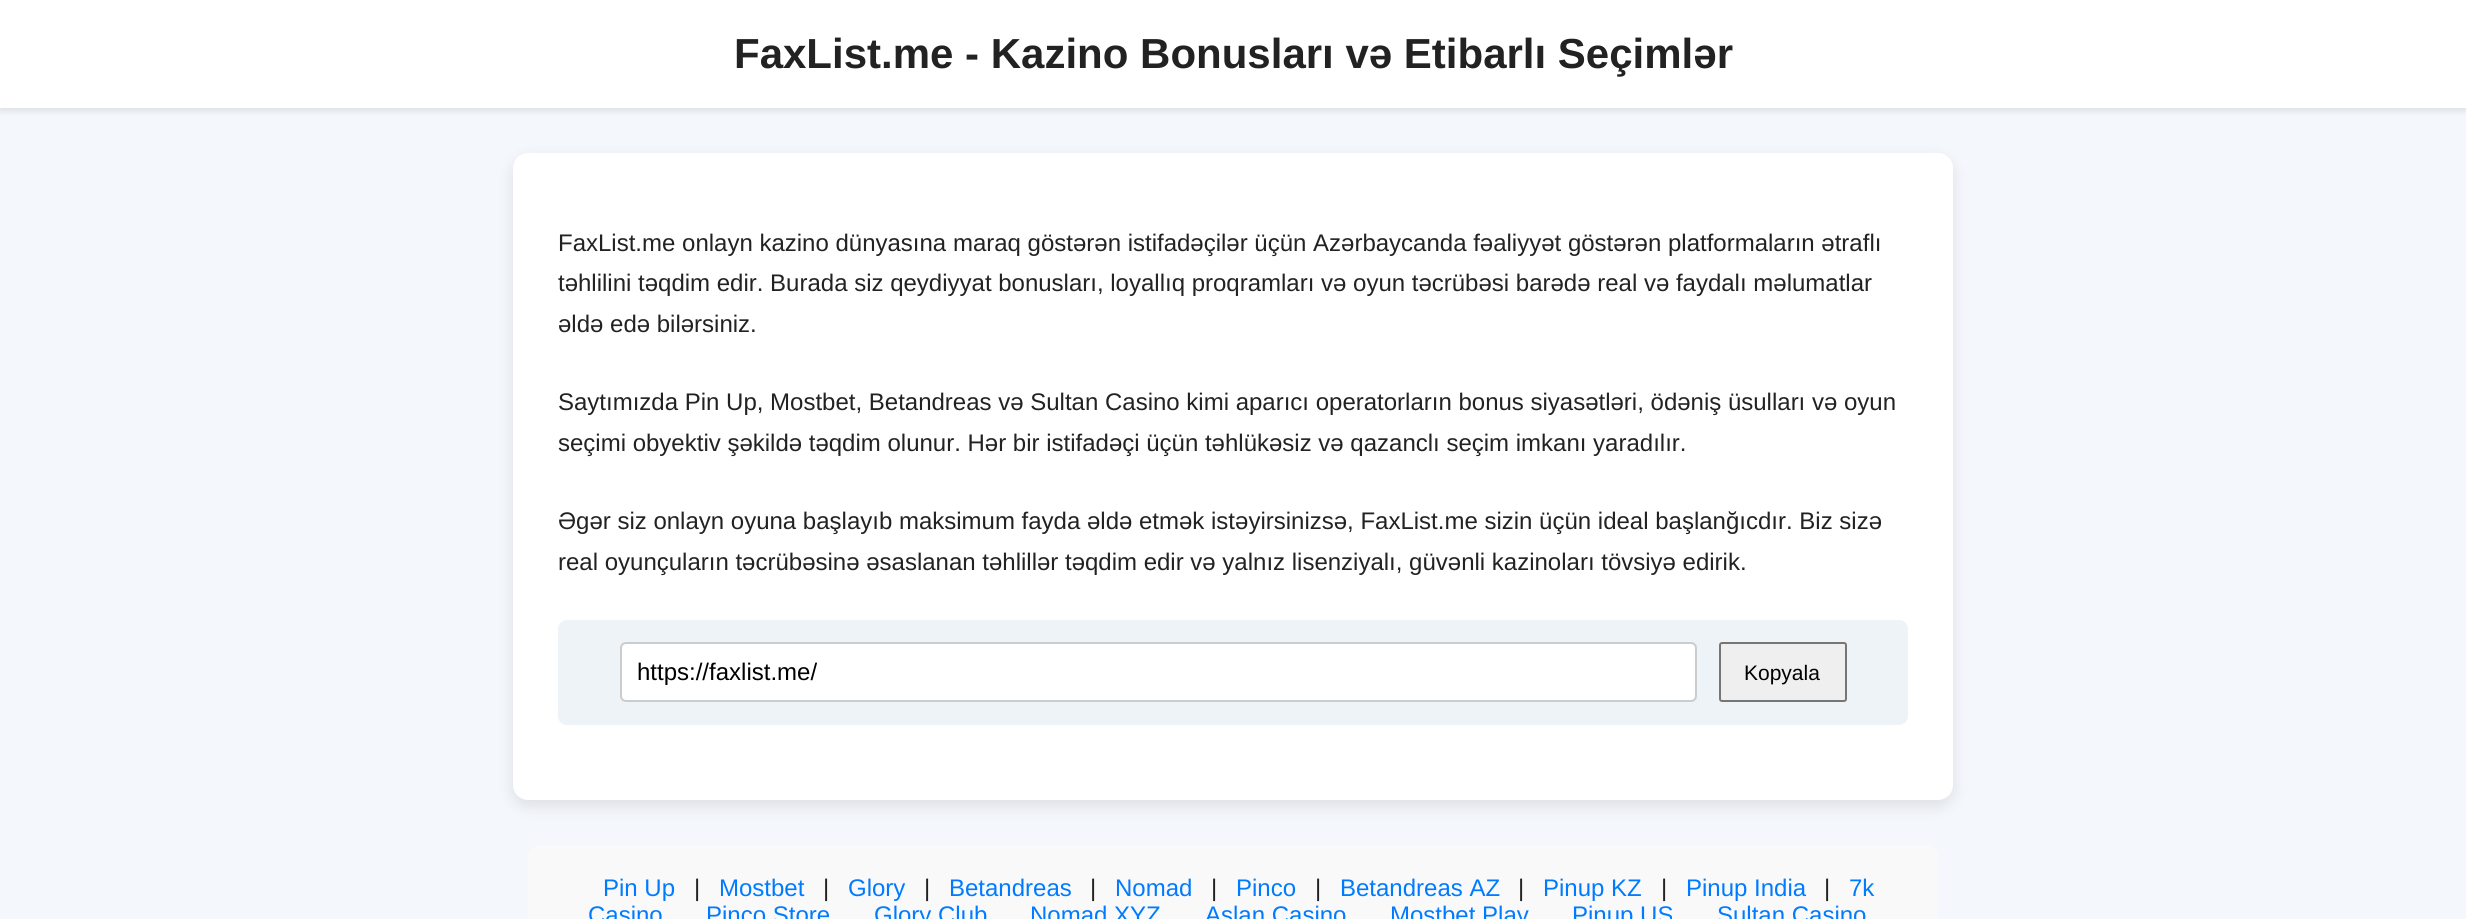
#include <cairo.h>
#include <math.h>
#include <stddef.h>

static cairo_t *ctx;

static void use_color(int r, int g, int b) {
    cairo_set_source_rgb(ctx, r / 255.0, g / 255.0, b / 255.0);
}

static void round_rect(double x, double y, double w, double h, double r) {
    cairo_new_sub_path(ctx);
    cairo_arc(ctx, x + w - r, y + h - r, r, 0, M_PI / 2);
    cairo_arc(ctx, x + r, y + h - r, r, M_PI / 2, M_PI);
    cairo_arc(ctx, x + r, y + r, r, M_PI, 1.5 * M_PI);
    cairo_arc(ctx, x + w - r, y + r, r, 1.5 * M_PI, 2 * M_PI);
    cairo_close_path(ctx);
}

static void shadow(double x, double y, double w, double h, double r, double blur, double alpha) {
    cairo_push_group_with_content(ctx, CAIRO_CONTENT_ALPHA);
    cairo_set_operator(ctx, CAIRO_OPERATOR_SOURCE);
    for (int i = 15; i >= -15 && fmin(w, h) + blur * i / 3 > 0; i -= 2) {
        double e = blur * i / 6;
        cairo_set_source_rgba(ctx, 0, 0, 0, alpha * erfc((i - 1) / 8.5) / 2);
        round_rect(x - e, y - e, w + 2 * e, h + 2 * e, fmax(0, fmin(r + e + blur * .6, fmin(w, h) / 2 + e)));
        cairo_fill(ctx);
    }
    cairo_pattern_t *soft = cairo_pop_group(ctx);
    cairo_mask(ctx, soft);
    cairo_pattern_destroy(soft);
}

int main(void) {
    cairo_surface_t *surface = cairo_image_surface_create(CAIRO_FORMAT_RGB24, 2466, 919);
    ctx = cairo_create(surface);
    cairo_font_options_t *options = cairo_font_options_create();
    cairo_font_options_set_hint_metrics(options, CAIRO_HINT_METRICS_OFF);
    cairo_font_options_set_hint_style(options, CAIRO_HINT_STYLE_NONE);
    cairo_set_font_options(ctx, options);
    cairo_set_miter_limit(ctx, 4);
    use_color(244, 247, 252);
    cairo_paint(ctx);
    use_color(0, 0, 0);
    shadow(0, 3, 2466, 108, 0, 3, 0.1);
    use_color(255, 255, 255);
    cairo_rectangle(ctx, 0, 0, 2466, 108);
    cairo_fill(ctx);
    cairo_select_font_face(ctx, "Liberation Sans", CAIRO_FONT_SLANT_NORMAL, CAIRO_FONT_WEIGHT_BOLD);
    cairo_set_font_size(ctx, 42);
    use_color(34, 34, 34);
    cairo_move_to(ctx, 734, 68);
    cairo_show_text(ctx, "FaxList.me - Kazino Bonusları və Etibarlı Seçimlər");
    use_color(0, 0, 0);
    shadow(513, 159, 1440, 647, 15, 7.5, 0.1);
    use_color(255, 255, 255);
    round_rect(513, 153, 1440, 647, 15);
    cairo_fill(ctx);
    cairo_select_font_face(ctx, "Liberation Sans", CAIRO_FONT_SLANT_NORMAL, CAIRO_FONT_WEIGHT_NORMAL);
    cairo_set_font_size(ctx, 24);
    use_color(34, 34, 34);
    cairo_move_to(ctx, 558, 251);
    cairo_show_text(ctx, "FaxList.me onlayn kazino dünyasına maraq göstərən istifadəçilər üçün Azərbaycanda fəaliyyət göstərən platformaların ətraflı");
    cairo_move_to(ctx, 558, 291);
    cairo_show_text(ctx, "təhlilini təqdim edir. Burada siz qeydiyyat bonusları, loyallıq proqramları və oyun təcrübəsi barədə real və faydalı məlumatlar");
    cairo_move_to(ctx, 558, 332);
    cairo_show_text(ctx, "əldə edə bilərsiniz.");
    cairo_move_to(ctx, 558, 410);
    cairo_show_text(ctx, "Saytımızda Pin Up, Mostbet, Betandreas və Sultan Casino kimi aparıcı operatorların bonus siyasətləri, ödəniş üsulları və oyun");
    cairo_move_to(ctx, 558, 451);
    cairo_show_text(ctx, "seçimi obyektiv şəkildə təqdim olunur. Hər bir istifadəçi üçün təhlükəsiz və qazanclı seçim imkanı yaradılır.");
    cairo_move_to(ctx, 558, 529);
    cairo_show_text(ctx, "Əgər siz onlayn oyuna başlayıb maksimum fayda əldə etmək istəyirsinizsə, FaxList.me sizin üçün ideal başlanğıcdır. Biz sizə");
    cairo_move_to(ctx, 558, 570);
    cairo_show_text(ctx, "real oyunçuların təcrübəsinə əsaslanan təhlillər təqdim edir və yalnız lisenziyalı, güvənli kazinoları tövsiyə edirik.");
    use_color(238, 243, 248);
    round_rect(558, 620, 1350, 105, 9);
    cairo_fill(ctx);
    use_color(255, 255, 255);
    round_rect(621, 643, 1075, 58, 5);
    cairo_fill_preserve(ctx);
    use_color(204, 204, 204);
    cairo_stroke(ctx);
    use_color(0, 0, 0);
    cairo_move_to(ctx, 637, 680);
    cairo_show_text(ctx, "https://faxlist.me/");
    use_color(239, 239, 239);
    round_rect(1720, 643, 126, 58, 2);
    cairo_fill_preserve(ctx);
    use_color(118, 118, 118);
    cairo_stroke(ctx);
    cairo_set_font_size(ctx, 21);
    use_color(0, 0, 0);
    cairo_move_to(ctx, 1744, 680);
    cairo_show_text(ctx, "Kopyala");
    use_color(249, 249, 249);
    round_rect(528, 845, 1410, 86, 12);
    cairo_fill(ctx);
    cairo_set_font_size(ctx, 24);
    use_color(0, 123, 255);
    cairo_move_to(ctx, 603, 896);
    cairo_show_text(ctx, "Pin Up");
    use_color(34, 34, 34);
    cairo_move_to(ctx, 694, 896);
    cairo_show_text(ctx, "|");
    use_color(0, 123, 255);
    cairo_move_to(ctx, 719, 896);
    cairo_show_text(ctx, "Mostbet");
    use_color(34, 34, 34);
    cairo_move_to(ctx, 823, 896);
    cairo_show_text(ctx, "|");
    use_color(0, 123, 255);
    cairo_move_to(ctx, 848, 896);
    cairo_show_text(ctx, "Glory");
    use_color(34, 34, 34);
    cairo_move_to(ctx, 924, 896);
    cairo_show_text(ctx, "|");
    use_color(0, 123, 255);
    cairo_move_to(ctx, 949, 896);
    cairo_show_text(ctx, "Betandreas");
    use_color(34, 34, 34);
    cairo_move_to(ctx, 1090, 896);
    cairo_show_text(ctx, "|");
    use_color(0, 123, 255);
    cairo_move_to(ctx, 1115, 896);
    cairo_show_text(ctx, "Nomad");
    use_color(34, 34, 34);
    cairo_move_to(ctx, 1211, 896);
    cairo_show_text(ctx, "|");
    use_color(0, 123, 255);
    cairo_move_to(ctx, 1236, 896);
    cairo_show_text(ctx, "Pinco");
    use_color(34, 34, 34);
    cairo_move_to(ctx, 1315, 896);
    cairo_show_text(ctx, "|");
    use_color(0, 123, 255);
    cairo_move_to(ctx, 1340, 896);
    cairo_show_text(ctx, "Betandreas AZ");
    use_color(34, 34, 34);
    cairo_move_to(ctx, 1518, 896);
    cairo_show_text(ctx, "|");
    use_color(0, 123, 255);
    cairo_move_to(ctx, 1543, 896);
    cairo_show_text(ctx, "Pinup KZ");
    use_color(34, 34, 34);
    cairo_move_to(ctx, 1661, 896);
    cairo_show_text(ctx, "|");
    use_color(0, 123, 255);
    cairo_move_to(ctx, 1686, 896);
    cairo_show_text(ctx, "Pinup India");
    use_color(34, 34, 34);
    cairo_move_to(ctx, 1824, 896);
    cairo_show_text(ctx, "|");
    use_color(0, 123, 255);
    cairo_move_to(ctx, 1849, 896);
    cairo_show_text(ctx, "7k");
    cairo_move_to(ctx, 588, 923);
    cairo_show_text(ctx, "Casino");
    cairo_move_to(ctx, 706, 923);
    cairo_show_text(ctx, "Pinco Store");
    cairo_move_to(ctx, 874, 923);
    cairo_show_text(ctx, "Glory Club");
    cairo_move_to(ctx, 1030, 923);
    cairo_show_text(ctx, "Nomad XYZ");
    cairo_move_to(ctx, 1205, 923);
    cairo_show_text(ctx, "Aslan Casino");
    cairo_move_to(ctx, 1390, 923);
    cairo_show_text(ctx, "Mostbet Play");
    cairo_move_to(ctx, 1572, 923);
    cairo_show_text(ctx, "Pinup US");
    cairo_move_to(ctx, 1717, 923);
    cairo_show_text(ctx, "Sultan Casino");
    cairo_surface_write_to_png(surface, "result.png");
    cairo_font_options_destroy(options);
    cairo_destroy(ctx);
    cairo_surface_destroy(surface);
    return 0;
}
